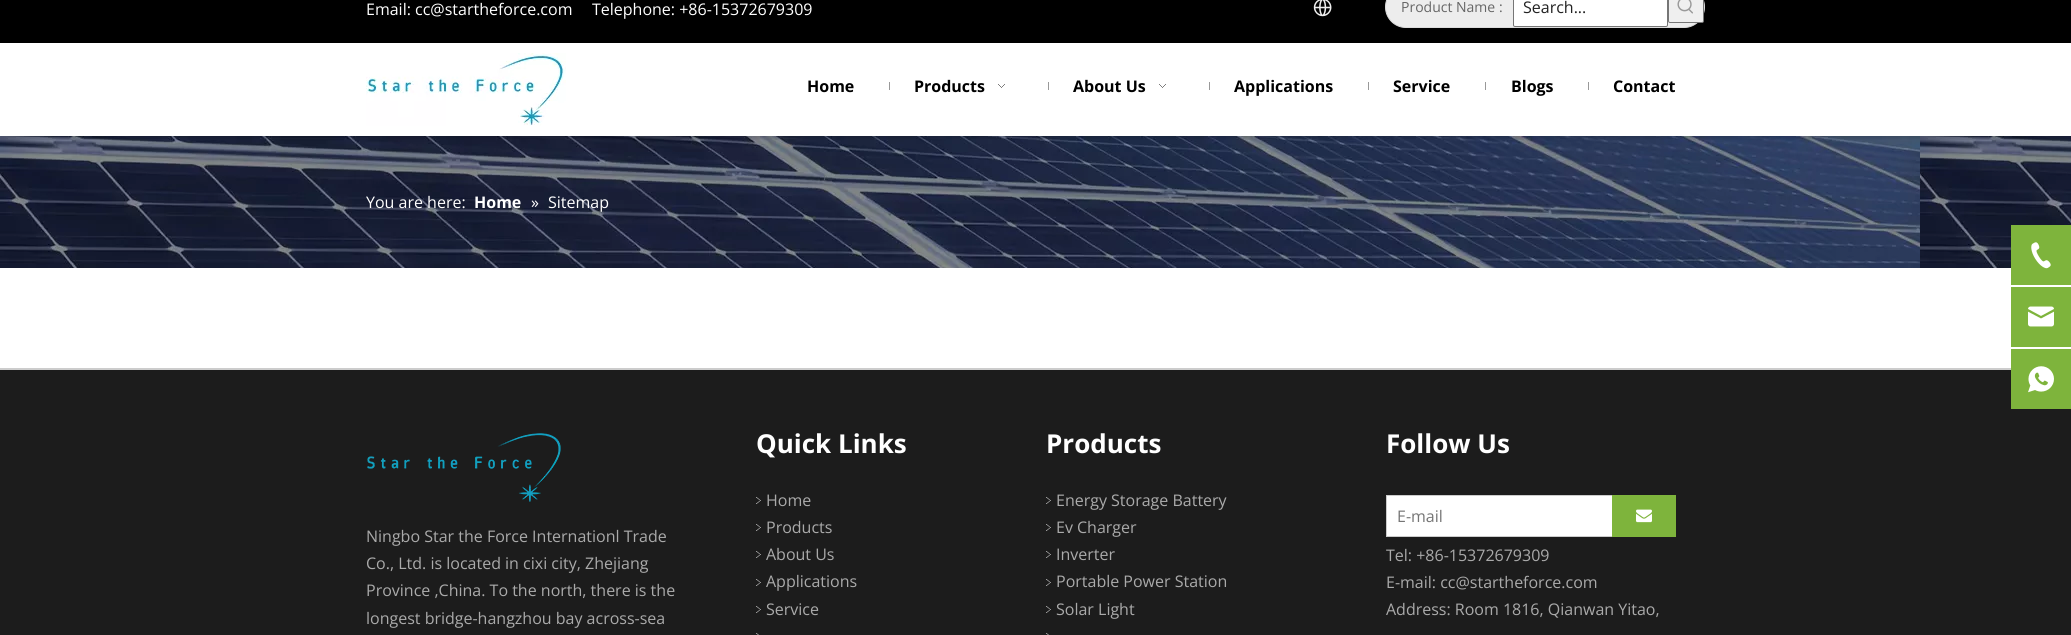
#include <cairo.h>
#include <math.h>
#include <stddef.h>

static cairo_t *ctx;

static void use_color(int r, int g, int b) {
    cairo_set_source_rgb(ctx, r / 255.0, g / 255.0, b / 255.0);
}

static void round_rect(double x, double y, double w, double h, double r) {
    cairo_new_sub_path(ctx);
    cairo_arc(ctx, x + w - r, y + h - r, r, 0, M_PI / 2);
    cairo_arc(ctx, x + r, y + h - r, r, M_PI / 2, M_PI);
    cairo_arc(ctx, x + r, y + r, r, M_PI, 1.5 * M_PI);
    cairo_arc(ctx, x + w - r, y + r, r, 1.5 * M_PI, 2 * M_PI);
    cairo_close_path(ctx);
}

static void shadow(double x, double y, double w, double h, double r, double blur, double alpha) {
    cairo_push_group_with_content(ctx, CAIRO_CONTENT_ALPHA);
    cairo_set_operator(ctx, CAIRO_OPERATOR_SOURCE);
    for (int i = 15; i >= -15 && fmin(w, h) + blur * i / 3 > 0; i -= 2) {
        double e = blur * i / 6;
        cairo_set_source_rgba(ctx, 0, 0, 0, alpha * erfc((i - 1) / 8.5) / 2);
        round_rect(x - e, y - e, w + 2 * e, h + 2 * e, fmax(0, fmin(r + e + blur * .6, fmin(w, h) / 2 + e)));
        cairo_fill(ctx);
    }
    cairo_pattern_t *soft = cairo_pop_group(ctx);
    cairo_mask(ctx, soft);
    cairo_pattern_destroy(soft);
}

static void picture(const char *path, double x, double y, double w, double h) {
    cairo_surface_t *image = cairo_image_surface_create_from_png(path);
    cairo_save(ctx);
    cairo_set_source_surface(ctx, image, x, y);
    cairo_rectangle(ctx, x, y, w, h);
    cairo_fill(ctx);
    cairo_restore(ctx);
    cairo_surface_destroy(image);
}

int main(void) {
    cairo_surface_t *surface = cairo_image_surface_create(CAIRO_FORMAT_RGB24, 2071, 635);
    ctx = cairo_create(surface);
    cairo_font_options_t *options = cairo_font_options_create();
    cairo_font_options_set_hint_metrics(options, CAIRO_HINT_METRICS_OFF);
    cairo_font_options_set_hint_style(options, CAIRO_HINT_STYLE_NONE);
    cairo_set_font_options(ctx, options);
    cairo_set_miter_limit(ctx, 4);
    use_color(255, 255, 255);
    cairo_paint(ctx);
    use_color(0, 0, 0);
    cairo_rectangle(ctx, 0, 0, 2071, 43);
    cairo_fill(ctx);
    cairo_select_font_face(ctx, "Open Sans", CAIRO_FONT_SLANT_NORMAL, CAIRO_FONT_WEIGHT_NORMAL);
    cairo_set_font_size(ctx, 16);
    use_color(255, 255, 255);
    cairo_move_to(ctx, 366, 15);
    cairo_show_text(ctx, "Email: cc@startheforce.com");
    cairo_move_to(ctx, 592, 15);
    cairo_show_text(ctx, "Telephone: +86-15372679309");
    picture("img1.png", 1313, 0, 19, 17);
    use_color(237, 237, 237);
    round_rect(1385.5, -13.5, 319, 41, 20.5);
    cairo_fill_preserve(ctx);
    use_color(221, 221, 221);
    cairo_set_line_width(ctx, 1);
    cairo_stroke(ctx);
    cairo_set_font_size(ctx, 14);
    use_color(102, 102, 102);
    cairo_move_to(ctx, 1401, 12);
    cairo_show_text(ctx, "Product Name");
    cairo_move_to(ctx, 1499, 12);
    cairo_show_text(ctx, ":");
    use_color(255, 255, 255);
    round_rect(1513.5, -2.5, 154, 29, 1.5);
    cairo_fill_preserve(ctx);
    use_color(118, 118, 118);
    cairo_stroke(ctx);
    cairo_set_font_size(ctx, 16);
    use_color(34, 34, 34);
    cairo_move_to(ctx, 1523, 13);
    cairo_show_text(ctx, "Search...");
    use_color(239, 239, 239);
    round_rect(1668.5, -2.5, 35, 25, 1.5);
    cairo_fill_preserve(ctx);
    use_color(118, 118, 118);
    cairo_stroke(ctx);
    picture("img2.png", 1677, 0, 16, 14);
    picture("img5.png", 0, 136, 2071, 132);
    cairo_save(ctx);
    cairo_rectangle(ctx, 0, 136, 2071, 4);
    cairo_clip(ctx);
    use_color(0, 0, 0);
    shadow(0, 45, 2071, 93, 0, 2, 0.16);
    cairo_restore(ctx);
    picture("img3.png", 366, 53, 200, 73);
    cairo_select_font_face(ctx, "Open Sans", CAIRO_FONT_SLANT_NORMAL, CAIRO_FONT_WEIGHT_BOLD);
    use_color(0, 0, 0);
    cairo_move_to(ctx, 807, 92);
    cairo_show_text(ctx, "Home");
    use_color(153, 153, 153);
    cairo_rectangle(ctx, 889, 82, 1, 8);
    cairo_fill(ctx);
    use_color(0, 0, 0);
    cairo_move_to(ctx, 914, 92);
    cairo_show_text(ctx, "Products");
    picture("img4.png", 998, 84, 7, 4);
    use_color(153, 153, 153);
    cairo_rectangle(ctx, 1048, 82, 1, 8);
    cairo_fill(ctx);
    use_color(0, 0, 0);
    cairo_move_to(ctx, 1073, 92);
    cairo_show_text(ctx, "About Us");
    picture("img4.png", 1159, 84, 7, 4);
    use_color(153, 153, 153);
    cairo_rectangle(ctx, 1209, 82, 1, 8);
    cairo_fill(ctx);
    use_color(0, 0, 0);
    cairo_move_to(ctx, 1234, 92);
    cairo_show_text(ctx, "Applications");
    use_color(153, 153, 153);
    cairo_rectangle(ctx, 1368, 82, 1, 8);
    cairo_fill(ctx);
    use_color(0, 0, 0);
    cairo_move_to(ctx, 1393, 92);
    cairo_show_text(ctx, "Service");
    use_color(153, 153, 153);
    cairo_rectangle(ctx, 1485, 82, 1, 8);
    cairo_fill(ctx);
    use_color(0, 0, 0);
    cairo_move_to(ctx, 1511, 92);
    cairo_show_text(ctx, "Blogs");
    use_color(153, 153, 153);
    cairo_rectangle(ctx, 1588, 82, 1, 8);
    cairo_fill(ctx);
    use_color(0, 0, 0);
    cairo_move_to(ctx, 1613, 92);
    cairo_show_text(ctx, "Contact");
    cairo_select_font_face(ctx, "Open Sans", CAIRO_FONT_SLANT_NORMAL, CAIRO_FONT_WEIGHT_NORMAL);
    use_color(255, 255, 255);
    cairo_move_to(ctx, 366, 208);
    cairo_show_text(ctx, "You are here:");
    cairo_select_font_face(ctx, "Open Sans", CAIRO_FONT_SLANT_NORMAL, CAIRO_FONT_WEIGHT_BOLD);
    cairo_move_to(ctx, 474, 208);
    cairo_show_text(ctx, "Home");
    cairo_select_font_face(ctx, "Open Sans", CAIRO_FONT_SLANT_NORMAL, CAIRO_FONT_WEIGHT_NORMAL);
    cairo_move_to(ctx, 531, 208);
    cairo_show_text(ctx, "»");
    cairo_move_to(ctx, 548, 208);
    cairo_show_text(ctx, "Sitemap");
    use_color(126, 180, 60);
    cairo_rectangle(ctx, 2011, 225, 60, 60);
    cairo_fill(ctx);
    picture("img6.png", 2031, 242, 20, 27);
    cairo_rectangle(ctx, 2011, 287, 60, 60);
    cairo_fill(ctx);
    picture("img7.png", 2028, 306, 26, 21);
    use_color(28, 28, 28);
    cairo_rectangle(ctx, 0, 370, 2071, 265);
    cairo_fill(ctx);
    use_color(126, 180, 60);
    cairo_rectangle(ctx, 2011, 349, 60, 60);
    cairo_fill(ctx);
    picture("img8.png", 2028, 366, 26, 27);
    use_color(204, 204, 204);
    cairo_rectangle(ctx, 0, 368, 2011, 2);
    cairo_fill(ctx);
    picture("img9.png", 367, 433, 194, 69);
    use_color(170, 170, 170);
    cairo_move_to(ctx, 366, 542);
    cairo_show_text(ctx, "Ningbo Star the Force Internationl Trade");
    cairo_move_to(ctx, 366, 569);
    cairo_show_text(ctx, "Co., Ltd. is located in cixi city, Zhejiang");
    cairo_move_to(ctx, 366, 596);
    cairo_show_text(ctx, "Province ,China. To the north, there is the");
    cairo_move_to(ctx, 366, 624);
    cairo_show_text(ctx, "longest bridge-hangzhou bay across-sea");
    cairo_select_font_face(ctx, "Open Sans", CAIRO_FONT_SLANT_NORMAL, CAIRO_FONT_WEIGHT_BOLD);
    cairo_set_font_size(ctx, 26);
    use_color(255, 255, 255);
    cairo_move_to(ctx, 756, 453);
    cairo_show_text(ctx, "Quick Links");
    picture("img10.png", 756, 497, 5, 7);
    cairo_select_font_face(ctx, "Open Sans", CAIRO_FONT_SLANT_NORMAL, CAIRO_FONT_WEIGHT_NORMAL);
    cairo_set_font_size(ctx, 16);
    use_color(170, 170, 170);
    cairo_move_to(ctx, 766, 506);
    cairo_show_text(ctx, "Home");
    picture("img10.png", 756, 524, 5, 7);
    cairo_move_to(ctx, 766, 533);
    cairo_show_text(ctx, "Products");
    picture("img10.png", 756, 551, 5, 7);
    cairo_move_to(ctx, 766, 560);
    cairo_show_text(ctx, "About Us");
    picture("img10.png", 756, 579, 5, 7);
    cairo_move_to(ctx, 766, 587);
    cairo_show_text(ctx, "Applications");
    picture("img10.png", 756, 606, 5, 7);
    cairo_move_to(ctx, 766, 615);
    cairo_show_text(ctx, "Service");
    picture("img11.png", 756, 633, 3, 2);
    cairo_select_font_face(ctx, "Open Sans", CAIRO_FONT_SLANT_NORMAL, CAIRO_FONT_WEIGHT_BOLD);
    cairo_set_font_size(ctx, 26);
    use_color(255, 255, 255);
    cairo_move_to(ctx, 1046, 453);
    cairo_show_text(ctx, "Products");
    picture("img10.png", 1046, 497, 5, 7);
    cairo_select_font_face(ctx, "Open Sans", CAIRO_FONT_SLANT_NORMAL, CAIRO_FONT_WEIGHT_NORMAL);
    cairo_set_font_size(ctx, 16);
    use_color(170, 170, 170);
    cairo_move_to(ctx, 1056, 506);
    cairo_show_text(ctx, "Energy Storage Battery");
    picture("img10.png", 1046, 524, 5, 7);
    cairo_move_to(ctx, 1056, 533);
    cairo_show_text(ctx, "Ev Charger");
    picture("img10.png", 1046, 551, 5, 7);
    cairo_move_to(ctx, 1056, 560);
    cairo_show_text(ctx, "Inverter");
    picture("img10.png", 1046, 579, 5, 7);
    cairo_move_to(ctx, 1056, 587);
    cairo_show_text(ctx, "Portable Power Station");
    picture("img10.png", 1046, 606, 5, 7);
    cairo_move_to(ctx, 1056, 615);
    cairo_show_text(ctx, "Solar Light");
    picture("img11.png", 1046, 633, 3, 2);
    cairo_select_font_face(ctx, "Open Sans", CAIRO_FONT_SLANT_NORMAL, CAIRO_FONT_WEIGHT_BOLD);
    cairo_set_font_size(ctx, 26);
    use_color(255, 255, 255);
    cairo_move_to(ctx, 1386, 453);
    cairo_show_text(ctx, "Follow Us");
    cairo_rectangle(ctx, 1387, 496, 225, 40);
    cairo_fill(ctx);
    cairo_rectangle(ctx, 1386.5, 495.5, 289, 41);
    use_color(204, 204, 204);
    cairo_stroke(ctx);
    cairo_select_font_face(ctx, "Open Sans", CAIRO_FONT_SLANT_NORMAL, CAIRO_FONT_WEIGHT_NORMAL);
    cairo_set_font_size(ctx, 16);
    use_color(117, 117, 117);
    cairo_move_to(ctx, 1397, 522);
    cairo_show_text(ctx, "E-mail");
    use_color(126, 180, 60);
    cairo_rectangle(ctx, 1612, 495, 64, 42);
    cairo_fill(ctx);
    picture("img12.png", 1636, 509, 16, 14);
    use_color(170, 170, 170);
    cairo_move_to(ctx, 1386, 561);
    cairo_show_text(ctx, "Tel: +86-15372679309");
    cairo_move_to(ctx, 1386, 588);
    cairo_show_text(ctx, "E-mail: cc@startheforce.com");
    cairo_move_to(ctx, 1386, 615);
    cairo_show_text(ctx, "Address: Room 1816, Qianwan Yitao,");
    cairo_surface_write_to_png(surface, "result.png");
    cairo_font_options_destroy(options);
    cairo_destroy(ctx);
    cairo_surface_destroy(surface);
    return 0;
}
